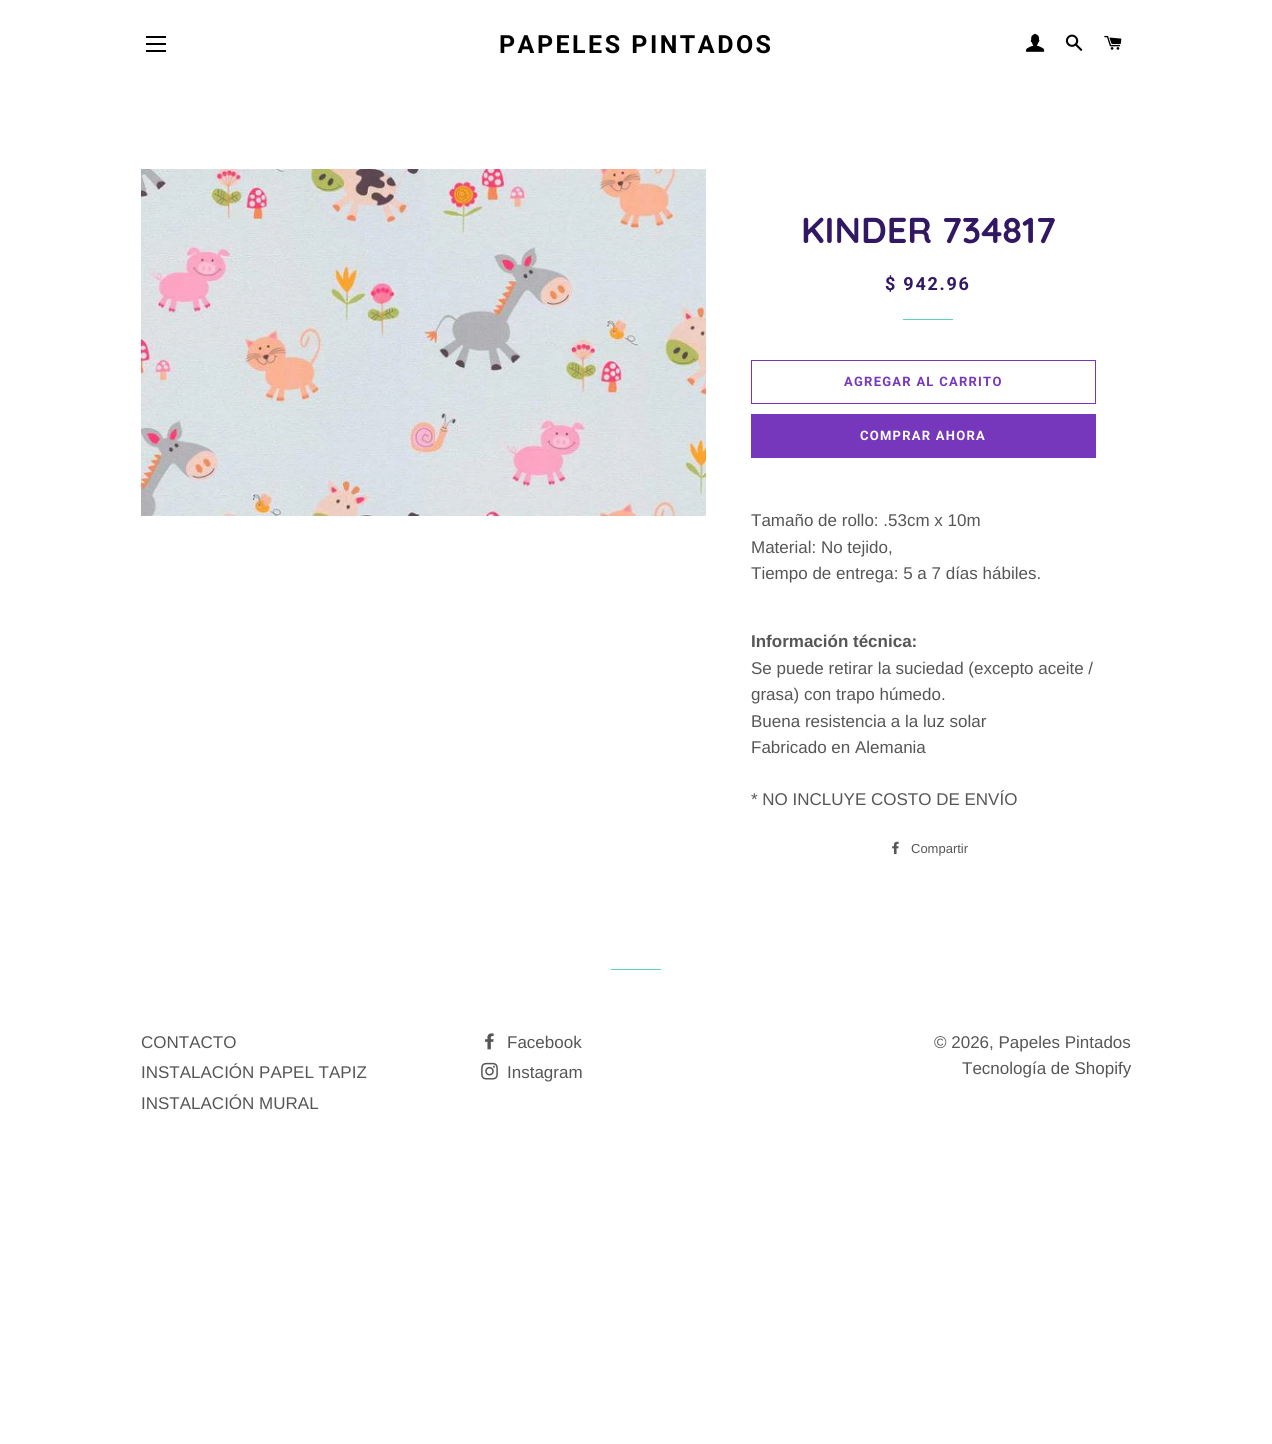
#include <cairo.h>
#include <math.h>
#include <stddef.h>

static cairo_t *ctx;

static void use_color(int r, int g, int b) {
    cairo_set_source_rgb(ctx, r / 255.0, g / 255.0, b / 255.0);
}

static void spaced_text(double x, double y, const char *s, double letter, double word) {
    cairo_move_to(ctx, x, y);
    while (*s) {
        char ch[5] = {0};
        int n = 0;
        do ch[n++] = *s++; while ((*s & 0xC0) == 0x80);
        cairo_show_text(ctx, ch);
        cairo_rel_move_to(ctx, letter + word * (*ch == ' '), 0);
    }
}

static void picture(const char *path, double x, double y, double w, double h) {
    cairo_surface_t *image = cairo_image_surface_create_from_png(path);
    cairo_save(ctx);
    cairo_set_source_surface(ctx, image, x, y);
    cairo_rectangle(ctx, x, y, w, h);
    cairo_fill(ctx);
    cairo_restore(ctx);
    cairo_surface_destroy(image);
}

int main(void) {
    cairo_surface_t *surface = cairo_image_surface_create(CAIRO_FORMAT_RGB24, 1272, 1444);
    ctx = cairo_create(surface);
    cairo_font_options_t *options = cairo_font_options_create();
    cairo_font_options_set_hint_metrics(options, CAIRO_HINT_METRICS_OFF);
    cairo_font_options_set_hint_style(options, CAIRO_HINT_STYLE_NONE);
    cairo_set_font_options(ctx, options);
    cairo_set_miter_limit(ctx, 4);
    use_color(255, 255, 255);
    cairo_paint(ctx);
    use_color(0, 0, 0);
    cairo_rectangle(ctx, 146, 36, 20, 2);
    cairo_fill(ctx);
    cairo_rectangle(ctx, 146, 43, 20, 2);
    cairo_fill(ctx);
    cairo_rectangle(ctx, 146, 50, 20, 2);
    cairo_fill(ctx);
    cairo_select_font_face(ctx, "Roboto", CAIRO_FONT_SLANT_NORMAL, CAIRO_FONT_WEIGHT_BOLD);
    cairo_set_font_size(ctx, 25);
    spaced_text(499, 53, "PAPELES PINTADOS", 2.5, 0);
    picture("img1.png", 1026, 33, 19, 19);
    picture("img2.png", 1065, 34, 18, 17);
    picture("img3.png", 1104, 35, 18, 15);
    picture("img4.png", 141, 169, 565, 347);
    cairo_select_font_face(ctx, "Quicksand", CAIRO_FONT_SLANT_NORMAL, CAIRO_FONT_WEIGHT_BOLD);
    cairo_set_font_size(ctx, 36);
    use_color(50, 24, 99);
    cairo_move_to(ctx, 801, 243);
    cairo_show_text(ctx, "KINDER 734817");
    cairo_select_font_face(ctx, "Roboto", CAIRO_FONT_SLANT_NORMAL, CAIRO_FONT_WEIGHT_BOLD);
    cairo_set_font_size(ctx, 18);
    spaced_text(885, 290, "$ 942.96", 1.75, 0);
    use_color(93, 210, 180);
    cairo_rectangle(ctx, 903, 319, 50, 1);
    cairo_fill(ctx);
    cairo_rectangle(ctx, 751.5, 360.5, 344, 43);
    use_color(119, 55, 189);
    cairo_set_line_width(ctx, 1);
    cairo_stroke(ctx);
    cairo_set_font_size(ctx, 13);
    spaced_text(844, 386, "AGREGAR AL CARRITO", 1.25, 0);
    cairo_rectangle(ctx, 751, 414, 345, 44);
    cairo_fill(ctx);
    use_color(255, 255, 255);
    spaced_text(860, 440, "COMPRAR AHORA", 1.25, 0);
    cairo_select_font_face(ctx, "Liberation Sans", CAIRO_FONT_SLANT_NORMAL, CAIRO_FONT_WEIGHT_NORMAL);
    cairo_set_font_size(ctx, 17);
    use_color(86, 86, 86);
    cairo_move_to(ctx, 751, 526);
    cairo_show_text(ctx, "Tamaño de rollo: .53cm x 10m");
    cairo_move_to(ctx, 751, 553);
    cairo_show_text(ctx, "Material: No tejido,");
    cairo_move_to(ctx, 751, 579);
    cairo_show_text(ctx, "Tiempo de entrega: 5 a 7 días hábiles.");
    cairo_select_font_face(ctx, "Liberation Sans", CAIRO_FONT_SLANT_NORMAL, CAIRO_FONT_WEIGHT_BOLD);
    cairo_move_to(ctx, 751, 647);
    cairo_show_text(ctx, "Información técnica:");
    cairo_select_font_face(ctx, "Liberation Sans", CAIRO_FONT_SLANT_NORMAL, CAIRO_FONT_WEIGHT_NORMAL);
    cairo_move_to(ctx, 751, 674);
    cairo_show_text(ctx, "Se puede retirar la suciedad (excepto aceite /");
    cairo_move_to(ctx, 751, 700);
    cairo_show_text(ctx, "grasa) con trapo húmedo.");
    cairo_move_to(ctx, 751, 727);
    cairo_show_text(ctx, "Buena resistencia a la luz solar");
    cairo_move_to(ctx, 751, 753);
    cairo_show_text(ctx, "Fabricado en Alemania");
    cairo_move_to(ctx, 751, 805);
    cairo_show_text(ctx, "* NO INCLUYE COSTO DE ENVÍO");
    picture("img5.png", 892, 841, 7, 14);
    cairo_set_font_size(ctx, 13);
    cairo_move_to(ctx, 911, 853);
    cairo_show_text(ctx, "Compartir");
    use_color(93, 210, 180);
    cairo_rectangle(ctx, 611, 969, 50, 1);
    cairo_fill(ctx);
    cairo_set_font_size(ctx, 17);
    use_color(86, 86, 86);
    cairo_move_to(ctx, 141, 1048);
    cairo_show_text(ctx, "CONTACTO");
    cairo_move_to(ctx, 141, 1078);
    cairo_show_text(ctx, "INSTALACIÓN PAPEL TAPIZ");
    cairo_move_to(ctx, 141, 1109);
    cairo_show_text(ctx, "INSTALACIÓN MURAL");
    picture("img6.png", 485, 1033, 9, 17);
    cairo_move_to(ctx, 507, 1048);
    cairo_show_text(ctx, "Facebook");
    picture("img7.png", 481, 1062, 17, 18);
    cairo_move_to(ctx, 507, 1078);
    cairo_show_text(ctx, "Instagram");
    cairo_move_to(ctx, 934, 1048);
    cairo_show_text(ctx, "© 2026, Papeles Pintados");
    cairo_move_to(ctx, 962, 1074);
    cairo_show_text(ctx, "Tecnología de Shopify");
    cairo_surface_write_to_png(surface, "result.png");
    cairo_font_options_destroy(options);
    cairo_destroy(ctx);
    cairo_surface_destroy(surface);
    return 0;
}
